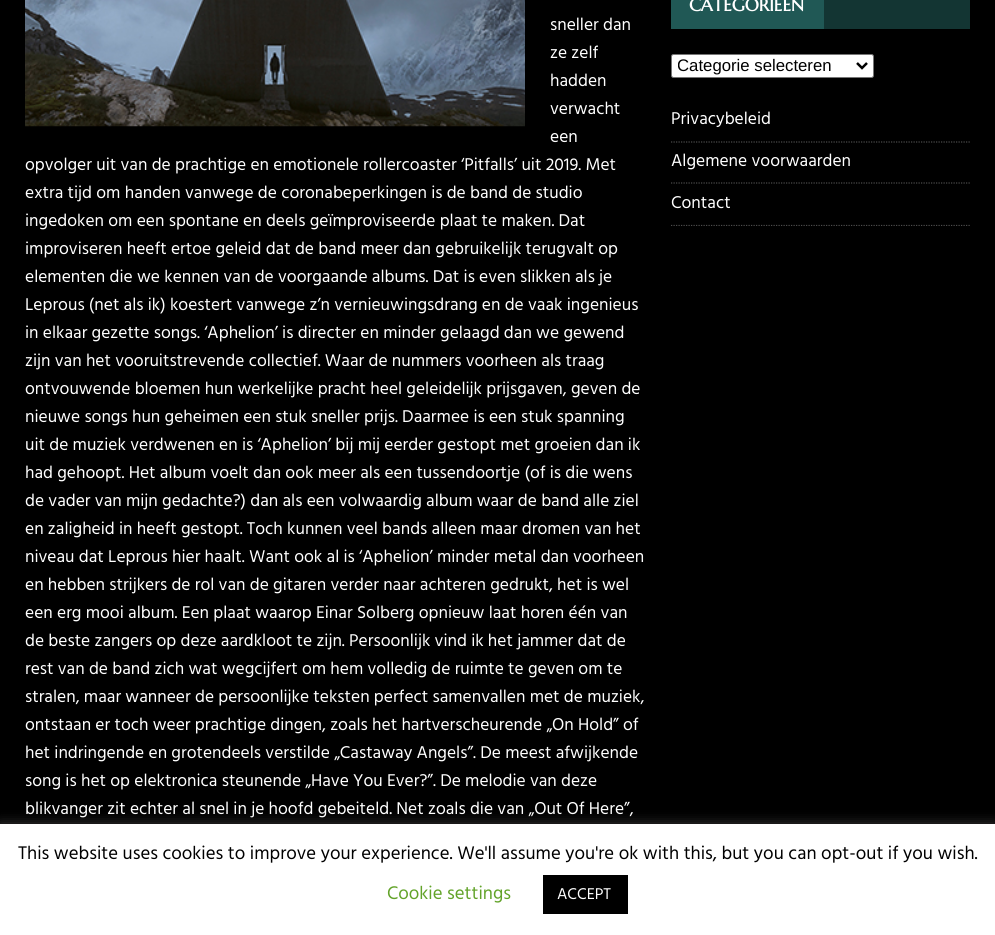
#include <cairo.h>
#include <math.h>
#include <stddef.h>

static cairo_t *ctx;

static void use_color(int r, int g, int b) {
    cairo_set_source_rgb(ctx, r / 255.0, g / 255.0, b / 255.0);
}

static void round_rect(double x, double y, double w, double h, double r) {
    cairo_new_sub_path(ctx);
    cairo_arc(ctx, x + w - r, y + h - r, r, 0, M_PI / 2);
    cairo_arc(ctx, x + r, y + h - r, r, M_PI / 2, M_PI);
    cairo_arc(ctx, x + r, y + r, r, M_PI, 1.5 * M_PI);
    cairo_arc(ctx, x + w - r, y + r, r, 1.5 * M_PI, 2 * M_PI);
    cairo_close_path(ctx);
}

static void shadow(double x, double y, double w, double h, double r, double blur, double alpha) {
    cairo_push_group_with_content(ctx, CAIRO_CONTENT_ALPHA);
    cairo_set_operator(ctx, CAIRO_OPERATOR_SOURCE);
    for (int i = 15; i >= -15 && fmin(w, h) + blur * i / 3 > 0; i -= 2) {
        double e = blur * i / 6;
        cairo_set_source_rgba(ctx, 0, 0, 0, alpha * erfc((i - 1) / 8.5) / 2);
        round_rect(x - e, y - e, w + 2 * e, h + 2 * e, fmax(0, fmin(r + e + blur * .6, fmin(w, h) / 2 + e)));
        cairo_fill(ctx);
    }
    cairo_pattern_t *soft = cairo_pop_group(ctx);
    cairo_mask(ctx, soft);
    cairo_pattern_destroy(soft);
}

static void picture(const char *path, double x, double y, double w, double h) {
    cairo_surface_t *image = cairo_image_surface_create_from_png(path);
    cairo_save(ctx);
    cairo_set_source_surface(ctx, image, x, y);
    cairo_rectangle(ctx, x, y, w, h);
    cairo_fill(ctx);
    cairo_restore(ctx);
    cairo_surface_destroy(image);
}

int main(void) {
    cairo_surface_t *surface = cairo_image_surface_create(CAIRO_FORMAT_RGB24, 995, 935);
    ctx = cairo_create(surface);
    cairo_font_options_t *options = cairo_font_options_create();
    cairo_font_options_set_hint_metrics(options, CAIRO_HINT_METRICS_OFF);
    cairo_font_options_set_hint_style(options, CAIRO_HINT_STYLE_NONE);
    cairo_set_font_options(ctx, options);
    cairo_set_miter_limit(ctx, 4);
    use_color(0, 0, 0);
    cairo_paint(ctx);
    picture("img1.png", 25, 0, 500, 127);
    cairo_select_font_face(ctx, "Hind", CAIRO_FONT_SLANT_NORMAL, CAIRO_FONT_WEIGHT_NORMAL);
    cairo_set_font_size(ctx, 17.5);
    use_color(255, 255, 255);
    cairo_move_to(ctx, 550, 30);
    cairo_show_text(ctx, "sneller dan");
    cairo_move_to(ctx, 550, 58);
    cairo_show_text(ctx, "ze zelf");
    cairo_move_to(ctx, 550, 86);
    cairo_show_text(ctx, "hadden");
    cairo_move_to(ctx, 550, 114);
    cairo_show_text(ctx, "verwacht");
    cairo_move_to(ctx, 550, 142);
    cairo_show_text(ctx, "een");
    cairo_move_to(ctx, 25, 170);
    cairo_show_text(ctx, "opvolger uit van de prachtige en emotionele rollercoaster ‘Pitfalls’ uit 2019. Met");
    cairo_move_to(ctx, 25, 198);
    cairo_show_text(ctx, "extra tijd om handen vanwege de coronabeperkingen is de band de studio");
    cairo_move_to(ctx, 25, 226);
    cairo_show_text(ctx, "ingedoken om een spontane en deels geïmproviseerde plaat te maken. Dat");
    cairo_move_to(ctx, 25, 254);
    cairo_show_text(ctx, "improviseren heeft ertoe geleid dat de band meer dan gebruikelijk terugvalt op");
    cairo_move_to(ctx, 25, 282);
    cairo_show_text(ctx, "elementen die we kennen van de voorgaande albums. Dat is even slikken als je");
    cairo_move_to(ctx, 25, 310);
    cairo_show_text(ctx, "Leprous (net als ik) koestert vanwege z’n vernieuwingsdrang en de vaak ingenieus");
    cairo_move_to(ctx, 25, 338);
    cairo_show_text(ctx, "in elkaar gezette songs. ‘Aphelion’ is directer en minder gelaagd dan we gewend");
    cairo_move_to(ctx, 25, 366);
    cairo_show_text(ctx, "zijn van het vooruitstrevende collectief. Waar de nummers voorheen als traag");
    cairo_move_to(ctx, 25, 394);
    cairo_show_text(ctx, "ontvouwende bloemen hun werkelijke pracht heel geleidelijk prijsgaven, geven de");
    cairo_move_to(ctx, 25, 422);
    cairo_show_text(ctx, "nieuwe songs hun geheimen een stuk sneller prijs. Daarmee is een stuk spanning");
    cairo_move_to(ctx, 25, 450);
    cairo_show_text(ctx, "uit de muziek verdwenen en is ‘Aphelion’ bij mij eerder gestopt met groeien dan ik");
    cairo_move_to(ctx, 25, 478);
    cairo_show_text(ctx, "had gehoopt. Het album voelt dan ook meer als een tussendoortje (of is die wens");
    cairo_move_to(ctx, 25, 506);
    cairo_show_text(ctx, "de vader van mijn gedachte?) dan als een volwaardig album waar de band alle ziel");
    cairo_move_to(ctx, 25, 534);
    cairo_show_text(ctx, "en zaligheid in heeft gestopt. Toch kunnen veel bands alleen maar dromen van het");
    cairo_move_to(ctx, 25, 562);
    cairo_show_text(ctx, "niveau dat Leprous hier haalt. Want ook al is ‘Aphelion’ minder metal dan voorheen");
    cairo_move_to(ctx, 25, 590);
    cairo_show_text(ctx, "en hebben strijkers de rol van de gitaren verder naar achteren gedrukt, het is wel");
    cairo_move_to(ctx, 25, 618);
    cairo_show_text(ctx, "een erg mooi album. Een plaat waarop Einar Solberg opnieuw laat horen één van");
    cairo_move_to(ctx, 25, 646);
    cairo_show_text(ctx, "de beste zangers op deze aardkloot te zijn. Persoonlijk vind ik het jammer dat de");
    cairo_move_to(ctx, 25, 674);
    cairo_show_text(ctx, "rest van de band zich wat wegcijfert om hem volledig de ruimte te geven om te");
    cairo_move_to(ctx, 25, 702);
    cairo_show_text(ctx, "stralen, maar wanneer de persoonlijke teksten perfect samenvallen met de muziek,");
    cairo_move_to(ctx, 25, 730);
    cairo_show_text(ctx, "ontstaan er toch weer prachtige dingen, zoals het hartverscheurende „On Hold” of");
    cairo_move_to(ctx, 25, 758);
    cairo_show_text(ctx, "het indringende en grotendeels verstilde „Castaway Angels”. De meest afwijkende");
    cairo_move_to(ctx, 25, 786);
    cairo_show_text(ctx, "song is het op elektronica steunende „Have You Ever?”. De melodie van deze");
    cairo_move_to(ctx, 25, 814);
    cairo_show_text(ctx, "blikvanger zit echter al snel in je hoofd gebeiteld. Net zoals die van „Out Of Here”,");
    use_color(19, 53, 51);
    cairo_rectangle(ctx, 824, 0, 146, 29);
    cairo_fill(ctx);
    use_color(32, 88, 85);
    cairo_rectangle(ctx, 671, 0, 153, 29);
    cairo_fill(ctx);
    cairo_select_font_face(ctx, "Marcellus SC", CAIRO_FONT_SLANT_NORMAL, CAIRO_FONT_WEIGHT_BOLD);
    use_color(255, 255, 255);
    cairo_move_to(ctx, 689, 11);
    cairo_show_text(ctx, "CATEGORIEËN");
    round_rect(671.5, 54.5, 202, 23, 2);
    cairo_fill_preserve(ctx);
    use_color(118, 118, 118);
    cairo_set_line_width(ctx, 1);
    cairo_stroke(ctx);
    cairo_new_path(ctx);
    cairo_move_to(ctx, 857, 63);
    cairo_line_to(ctx, 862, 68);
    cairo_line_to(ctx, 867, 63);
    use_color(0, 0, 0);
    cairo_set_line_width(ctx, 2.5);
    cairo_stroke(ctx);
    cairo_save(ctx);
    cairo_rectangle(ctx, 678, 55, 175, 21);
    cairo_clip(ctx);
    cairo_select_font_face(ctx, "Liberation Sans", CAIRO_FONT_SLANT_NORMAL, CAIRO_FONT_WEIGHT_NORMAL);
    cairo_set_font_size(ctx, 16.75);
    cairo_move_to(ctx, 677, 71);
    cairo_show_text(ctx, "Categorie selecteren");
    cairo_restore(ctx);
    cairo_new_path(ctx);
    cairo_move_to(ctx, 671, 142);
    cairo_line_to(ctx, 970, 142);
    use_color(77, 77, 77);
    cairo_set_line_width(ctx, 1.2);
    cairo_set_dash(ctx, (double[]){1.25, 1.25}, 2, 0);
    cairo_stroke(ctx);
    cairo_select_font_face(ctx, "Hind", CAIRO_FONT_SLANT_NORMAL, CAIRO_FONT_WEIGHT_NORMAL);
    use_color(255, 255, 255);
    cairo_move_to(ctx, 671, 124);
    cairo_show_text(ctx, "Privacybeleid");
    cairo_new_path(ctx);
    cairo_move_to(ctx, 671, 183);
    cairo_line_to(ctx, 970, 183);
    use_color(77, 77, 77);
    cairo_stroke(ctx);
    use_color(255, 255, 255);
    cairo_move_to(ctx, 671, 166);
    cairo_show_text(ctx, "Algemene voorwaarden");
    cairo_save(ctx);
    cairo_rectangle(ctx, 671, 106, 299, 120);
    cairo_clip(ctx);
    cairo_new_path(ctx);
    cairo_move_to(ctx, 671, 225.5);
    cairo_line_to(ctx, 970, 225.5);
    use_color(77, 77, 77);
    cairo_stroke(ctx);
    cairo_restore(ctx);
    cairo_move_to(ctx, 671, 208);
    cairo_show_text(ctx, "Contact");
    use_color(172, 171, 171);
    shadow(0, 823, 995, 111, 0, 6, 0.3);
    use_color(255, 255, 255);
    cairo_rectangle(ctx, 0, 824, 995, 111);
    cairo_fill(ctx);
    cairo_set_font_size(ctx, 18.75);
    use_color(0, 0, 0);
    cairo_move_to(ctx, 18, 859);
    cairo_show_text(ctx, "This website uses cookies to improve your experience. We'll assume you're ok with this, but you can opt-out if you wish.");
    use_color(98, 163, 41);
    cairo_move_to(ctx, 387, 899);
    cairo_show_text(ctx, "Cookie settings");
    use_color(0, 0, 0);
    cairo_rectangle(ctx, 543, 875, 85, 39);
    cairo_fill(ctx);
    cairo_set_font_size(ctx, 16);
    use_color(255, 255, 255);
    cairo_move_to(ctx, 557, 899);
    cairo_show_text(ctx, "ACCEPT");
    cairo_surface_write_to_png(surface, "result.png");
    cairo_font_options_destroy(options);
    cairo_destroy(ctx);
    cairo_surface_destroy(surface);
    return 0;
}
